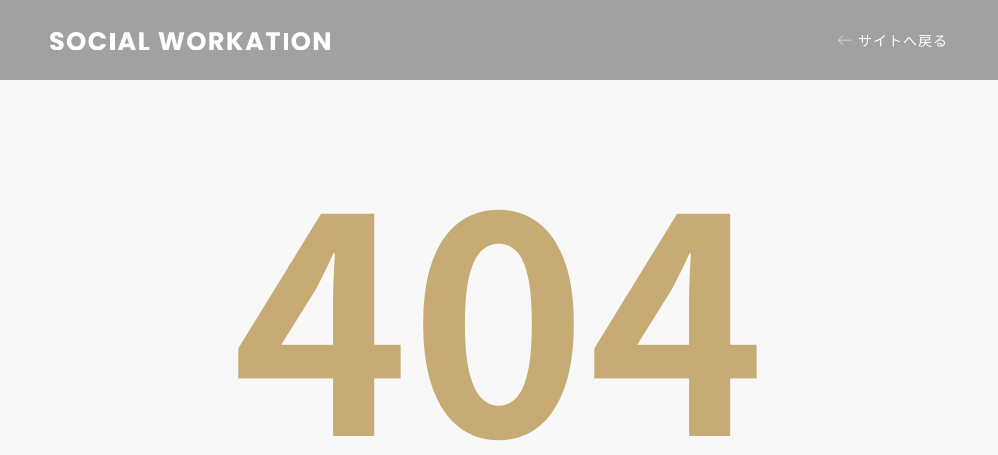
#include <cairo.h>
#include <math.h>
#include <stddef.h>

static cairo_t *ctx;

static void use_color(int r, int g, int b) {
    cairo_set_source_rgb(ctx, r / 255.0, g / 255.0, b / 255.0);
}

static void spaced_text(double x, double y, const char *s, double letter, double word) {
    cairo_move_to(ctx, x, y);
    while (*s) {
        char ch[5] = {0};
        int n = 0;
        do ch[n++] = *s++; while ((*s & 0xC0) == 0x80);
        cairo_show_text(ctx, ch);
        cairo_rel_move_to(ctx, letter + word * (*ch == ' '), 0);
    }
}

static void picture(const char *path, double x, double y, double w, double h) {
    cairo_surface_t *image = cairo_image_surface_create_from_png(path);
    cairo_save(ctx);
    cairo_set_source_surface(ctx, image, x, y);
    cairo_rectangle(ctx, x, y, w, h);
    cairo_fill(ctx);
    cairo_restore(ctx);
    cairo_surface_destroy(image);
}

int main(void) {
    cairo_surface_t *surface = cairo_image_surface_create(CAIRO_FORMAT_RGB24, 998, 455);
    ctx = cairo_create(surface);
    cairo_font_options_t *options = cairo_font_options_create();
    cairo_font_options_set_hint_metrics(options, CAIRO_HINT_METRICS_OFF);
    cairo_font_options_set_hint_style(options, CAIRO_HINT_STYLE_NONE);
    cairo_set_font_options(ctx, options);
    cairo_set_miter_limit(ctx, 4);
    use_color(161, 161, 161);
    cairo_paint(ctx);
    picture("img1.png", 50, 32, 280, 18);
    picture("img2.png", 838, 35, 14, 10);
    cairo_select_font_face(ctx, "Noto Sans JP", CAIRO_FONT_SLANT_NORMAL, CAIRO_FONT_WEIGHT_NORMAL);
    cairo_set_font_size(ctx, 14);
    use_color(255, 255, 255);
    spaced_text(858, 46, "サイトへ戻る", 1, 0);
    use_color(248, 248, 248);
    cairo_rectangle(ctx, 0, 80, 998, 375);
    cairo_fill(ctx);
    cairo_select_font_face(ctx, "Noto Sans JP", CAIRO_FONT_SLANT_NORMAL, CAIRO_FONT_WEIGHT_BOLD);
    cairo_set_font_size(ctx, 300);
    use_color(199, 171, 116);
    spaced_text(232, 436, "404", 1, 0);
    cairo_surface_write_to_png(surface, "result.png");
    cairo_font_options_destroy(options);
    cairo_destroy(ctx);
    cairo_surface_destroy(surface);
    return 0;
}
